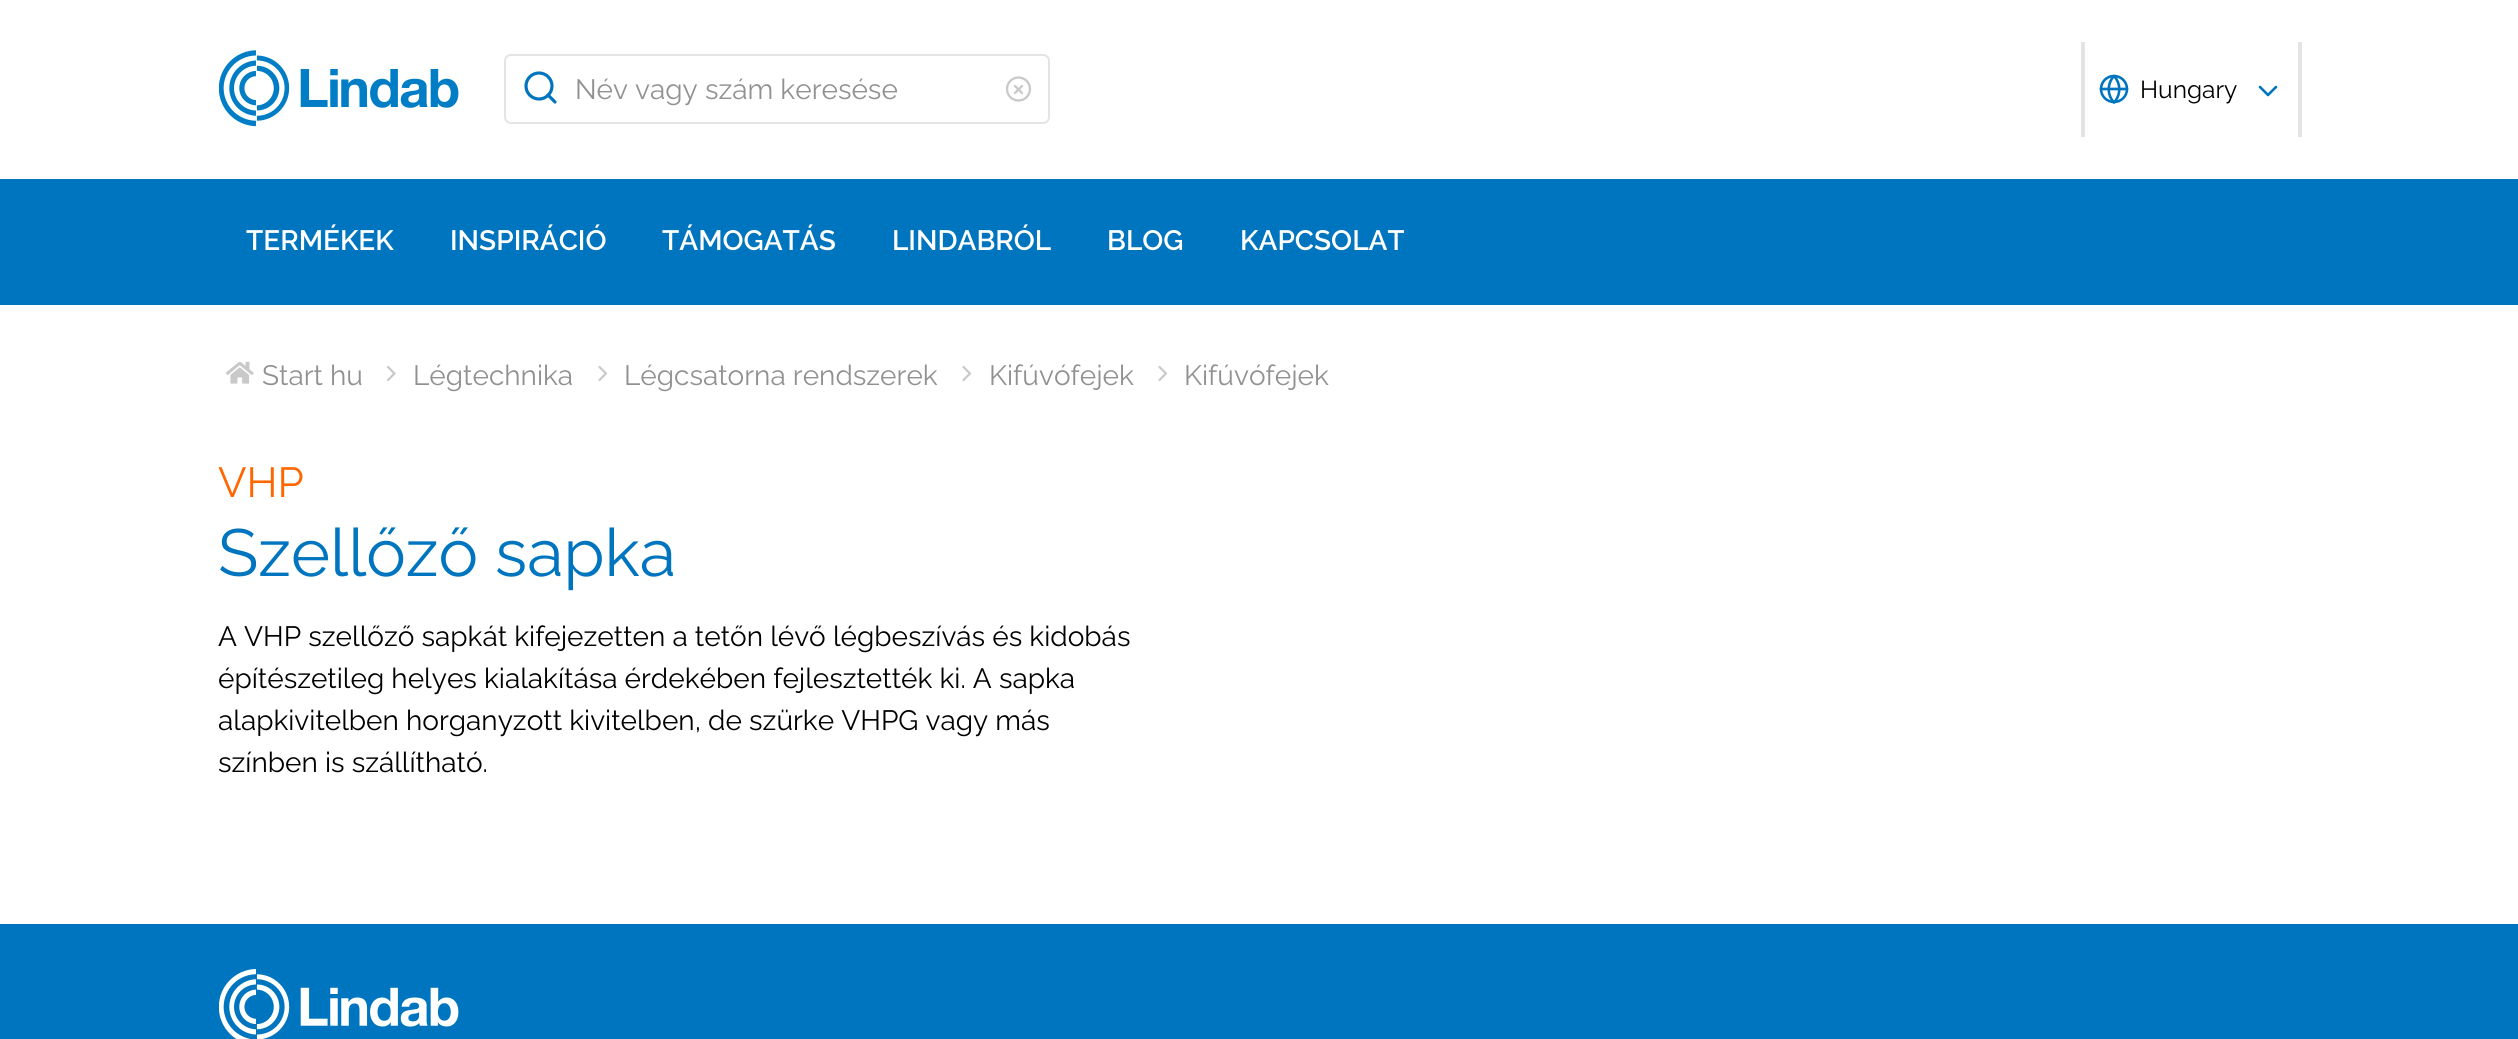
#include <cairo.h>
#include <math.h>
#include <stddef.h>

static cairo_t *ctx;

static void use_color(int r, int g, int b) {
    cairo_set_source_rgb(ctx, r / 255.0, g / 255.0, b / 255.0);
}

static void round_rect(double x, double y, double w, double h, double r) {
    cairo_new_sub_path(ctx);
    cairo_arc(ctx, x + w - r, y + h - r, r, 0, M_PI / 2);
    cairo_arc(ctx, x + r, y + h - r, r, M_PI / 2, M_PI);
    cairo_arc(ctx, x + r, y + r, r, M_PI, 1.5 * M_PI);
    cairo_arc(ctx, x + w - r, y + r, r, 1.5 * M_PI, 2 * M_PI);
    cairo_close_path(ctx);
}

static void picture(const char *path, double x, double y, double w, double h) {
    cairo_surface_t *image = cairo_image_surface_create_from_png(path);
    cairo_save(ctx);
    cairo_set_source_surface(ctx, image, x, y);
    cairo_rectangle(ctx, x, y, w, h);
    cairo_fill(ctx);
    cairo_restore(ctx);
    cairo_surface_destroy(image);
}

int main(void) {
    cairo_surface_t *surface = cairo_image_surface_create(CAIRO_FORMAT_RGB24, 2518, 1039);
    ctx = cairo_create(surface);
    cairo_font_options_t *options = cairo_font_options_create();
    cairo_font_options_set_hint_metrics(options, CAIRO_HINT_METRICS_OFF);
    cairo_font_options_set_hint_style(options, CAIRO_HINT_STYLE_NONE);
    cairo_set_font_options(ctx, options);
    cairo_set_miter_limit(ctx, 4);
    use_color(255, 255, 255);
    cairo_paint(ctx);
    picture("img1.png", 219, 50, 240, 77);
    round_rect(505, 55, 544, 68, 6);
    use_color(228, 228, 228);
    cairo_stroke(ctx);
    cairo_arc(ctx, 539, 86, 13, 0, 2 * M_PI);
    use_color(0, 117, 191);
    cairo_set_line_width(ctx, 3.2);
    cairo_stroke(ctx);
    cairo_new_path(ctx);
    cairo_move_to(ctx, 555, 102);
    cairo_line_to(ctx, 548, 95);
    cairo_set_line_cap(ctx, CAIRO_LINE_CAP_ROUND);
    cairo_set_line_join(ctx, CAIRO_LINE_JOIN_ROUND);
    cairo_stroke(ctx);
    cairo_select_font_face(ctx, "Raleway Thin", CAIRO_FONT_SLANT_NORMAL, CAIRO_FONT_WEIGHT_NORMAL);
    cairo_set_font_size(ctx, 28);
    use_color(145, 145, 145);
    cairo_move_to(ctx, 575, 99);
    cairo_show_text(ctx, "Név vagy szám keresése");
    cairo_new_path(ctx);
    cairo_arc(ctx, 1018.5, 89, 11.5, 0, 2 * M_PI);
    use_color(201, 201, 201);
    cairo_set_line_width(ctx, 2.3);
    cairo_set_line_cap(ctx, CAIRO_LINE_CAP_BUTT);
    cairo_set_line_join(ctx, CAIRO_LINE_JOIN_MITER);
    cairo_stroke(ctx);
    cairo_new_path(ctx);
    cairo_move_to(ctx, 1022, 86);
    cairo_line_to(ctx, 1015, 93);
    cairo_move_to(ctx, 1015, 86);
    cairo_line_to(ctx, 1022, 93);
    cairo_set_line_cap(ctx, CAIRO_LINE_CAP_ROUND);
    cairo_set_line_join(ctx, CAIRO_LINE_JOIN_ROUND);
    cairo_stroke(ctx);
    use_color(228, 228, 228);
    cairo_rectangle(ctx, 2298, 42, 4, 95);
    cairo_fill(ctx);
    cairo_rectangle(ctx, 2081, 42, 4, 95);
    cairo_fill(ctx);
    cairo_arc(ctx, 2114, 89, 13, 0, 2 * M_PI);
    use_color(0, 117, 191);
    cairo_set_line_width(ctx, 2.6);
    cairo_set_line_cap(ctx, CAIRO_LINE_CAP_BUTT);
    cairo_set_line_join(ctx, CAIRO_LINE_JOIN_MITER);
    cairo_stroke(ctx);
    cairo_new_path(ctx);
    cairo_move_to(ctx, 2101, 89);
    cairo_line_to(ctx, 2127, 89);
    cairo_move_to(ctx, 2114, 76);
    cairo_curve_to(ctx, 2121, 83.5, 2121, 95, 2114, 102.5);
    cairo_curve_to(ctx, 2107, 95, 2107, 83.5, 2114, 76);
    cairo_close_path(ctx);
    cairo_set_line_cap(ctx, CAIRO_LINE_CAP_ROUND);
    cairo_set_line_join(ctx, CAIRO_LINE_JOIN_ROUND);
    cairo_stroke(ctx);
    cairo_set_font_size(ctx, 24.5);
    use_color(0, 0, 0);
    cairo_move_to(ctx, 2140, 98);
    cairo_show_text(ctx, "Hungary");
    cairo_new_path(ctx);
    cairo_move_to(ctx, 2260, 87);
    cairo_line_to(ctx, 2268, 95);
    cairo_line_to(ctx, 2276, 87);
    use_color(0, 117, 191);
    cairo_stroke(ctx);
    cairo_rectangle(ctx, 0, 179, 2518, 126);
    cairo_fill(ctx);
    cairo_select_font_face(ctx, "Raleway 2 Thin", CAIRO_FONT_SLANT_NORMAL, CAIRO_FONT_WEIGHT_NORMAL);
    cairo_set_font_size(ctx, 28);
    use_color(255, 255, 255);
    cairo_move_to(ctx, 246, 250);
    cairo_show_text(ctx, "TERMÉKEK");
    cairo_move_to(ctx, 450, 250);
    cairo_show_text(ctx, "INSPIRÁCIÓ");
    cairo_move_to(ctx, 662, 250);
    cairo_show_text(ctx, "TÁMOGATÁS");
    cairo_move_to(ctx, 892, 250);
    cairo_show_text(ctx, "LINDABRÓL");
    cairo_move_to(ctx, 1107, 250);
    cairo_show_text(ctx, "BLOG");
    cairo_move_to(ctx, 1240, 250);
    cairo_show_text(ctx, "KAPCSOLAT");
    picture("img2.png", 226, 361, 28, 23);
    cairo_select_font_face(ctx, "Raleway Thin", CAIRO_FONT_SLANT_NORMAL, CAIRO_FONT_WEIGHT_NORMAL);
    use_color(145, 145, 145);
    cairo_move_to(ctx, 262, 385);
    cairo_show_text(ctx, "Start hu");
    cairo_new_path(ctx);
    cairo_move_to(ctx, 388, 380);
    cairo_line_to(ctx, 394.5, 373.5);
    cairo_line_to(ctx, 388, 367);
    use_color(201, 201, 201);
    cairo_set_line_width(ctx, 2.2);
    cairo_stroke(ctx);
    use_color(145, 145, 145);
    cairo_move_to(ctx, 413, 385);
    cairo_show_text(ctx, "Légtechnika");
    cairo_new_path(ctx);
    cairo_move_to(ctx, 599.5, 380);
    cairo_line_to(ctx, 606, 373.5);
    cairo_line_to(ctx, 599.5, 367);
    use_color(201, 201, 201);
    cairo_stroke(ctx);
    use_color(145, 145, 145);
    cairo_move_to(ctx, 624, 385);
    cairo_show_text(ctx, "Légcsatorna rendszerek");
    cairo_new_path(ctx);
    cairo_move_to(ctx, 963.5, 380);
    cairo_line_to(ctx, 970, 373.5);
    cairo_line_to(ctx, 963.5, 367);
    use_color(201, 201, 201);
    cairo_stroke(ctx);
    use_color(145, 145, 145);
    cairo_move_to(ctx, 989, 385);
    cairo_show_text(ctx, "Kifúvófejek");
    cairo_new_path(ctx);
    cairo_move_to(ctx, 1159.5, 380);
    cairo_line_to(ctx, 1166, 373.5);
    cairo_line_to(ctx, 1159.5, 367);
    use_color(201, 201, 201);
    cairo_stroke(ctx);
    use_color(145, 145, 145);
    cairo_move_to(ctx, 1184, 385);
    cairo_show_text(ctx, "Kifúvófejek");
    cairo_set_font_size(ctx, 42);
    use_color(255, 102, 0);
    cairo_move_to(ctx, 218, 497);
    cairo_show_text(ctx, "VHP");
    cairo_set_font_size(ctx, 66.5);
    use_color(0, 117, 191);
    cairo_move_to(ctx, 218, 576);
    cairo_show_text(ctx, "Szellőző sapka");
    cairo_set_font_size(ctx, 28);
    use_color(0, 0, 0);
    cairo_move_to(ctx, 218, 646);
    cairo_show_text(ctx, "A VHP szellőző sapkát kifejezetten a tetőn lévő légbeszívás és kidobás");
    cairo_move_to(ctx, 218, 688);
    cairo_show_text(ctx, "építészetileg helyes kialakítása érdekében fejlesztették ki. A sapka");
    cairo_move_to(ctx, 218, 730);
    cairo_show_text(ctx, "alapkivitelben horganyzott kivitelben, de szürke VHPG vagy más");
    cairo_move_to(ctx, 218, 772);
    cairo_show_text(ctx, "színben is szállítható.");
    use_color(0, 117, 191);
    cairo_rectangle(ctx, 0, 924, 2518, 115);
    cairo_fill(ctx);
    picture("img3.png", 219, 969, 240, 70);
    cairo_surface_write_to_png(surface, "result.png");
    cairo_font_options_destroy(options);
    cairo_destroy(ctx);
    cairo_surface_destroy(surface);
    return 0;
}
